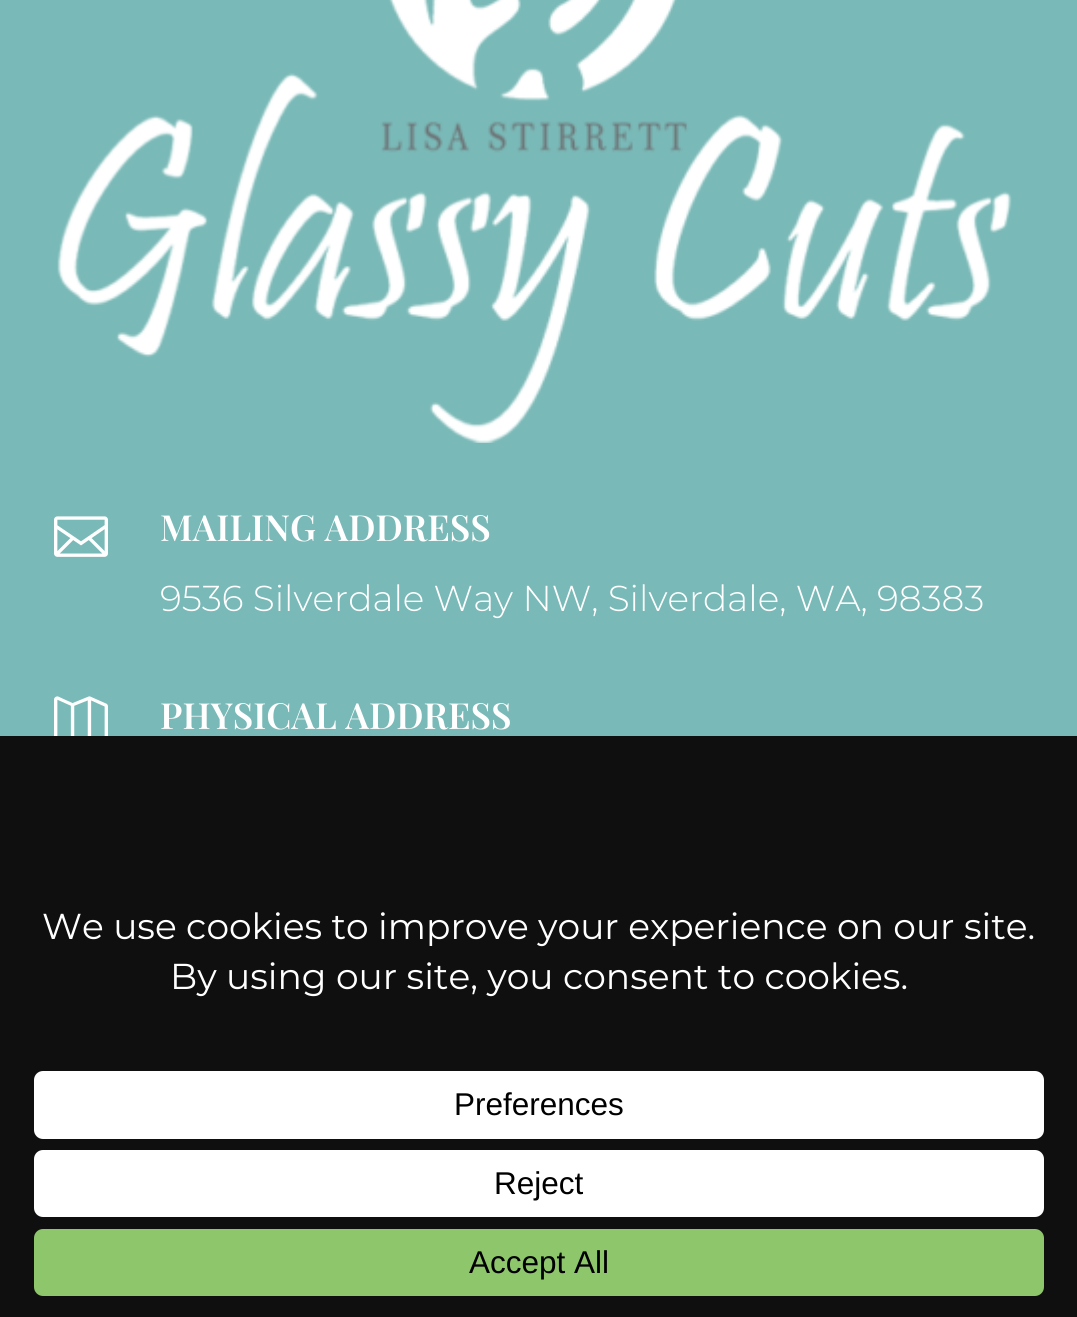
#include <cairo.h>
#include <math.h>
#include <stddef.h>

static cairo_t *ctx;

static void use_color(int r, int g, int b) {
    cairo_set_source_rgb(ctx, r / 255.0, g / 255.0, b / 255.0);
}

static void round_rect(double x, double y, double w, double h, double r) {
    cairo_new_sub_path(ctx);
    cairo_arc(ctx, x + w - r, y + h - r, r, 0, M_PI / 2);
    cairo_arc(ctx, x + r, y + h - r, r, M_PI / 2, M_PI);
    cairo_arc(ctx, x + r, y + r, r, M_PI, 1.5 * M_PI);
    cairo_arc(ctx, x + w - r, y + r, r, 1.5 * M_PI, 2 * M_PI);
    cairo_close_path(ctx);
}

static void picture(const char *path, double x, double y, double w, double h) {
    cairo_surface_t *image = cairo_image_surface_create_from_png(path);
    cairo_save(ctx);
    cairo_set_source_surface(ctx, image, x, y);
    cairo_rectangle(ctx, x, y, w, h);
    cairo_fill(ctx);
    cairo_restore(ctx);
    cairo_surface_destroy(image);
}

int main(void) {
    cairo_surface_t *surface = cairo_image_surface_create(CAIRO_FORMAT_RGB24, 1077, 1317);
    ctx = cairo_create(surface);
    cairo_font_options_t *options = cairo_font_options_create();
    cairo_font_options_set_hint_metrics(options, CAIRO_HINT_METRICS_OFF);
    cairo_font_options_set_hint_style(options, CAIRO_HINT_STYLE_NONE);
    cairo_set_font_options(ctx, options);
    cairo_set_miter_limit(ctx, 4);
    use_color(121, 185, 183);
    cairo_paint(ctx);
    picture("img1.png", 57, 0, 955, 443);
    picture("img2.png", 54, 516, 54, 41);
    cairo_select_font_face(ctx, "Playfair Display SemiBold", CAIRO_FONT_SLANT_NORMAL, CAIRO_FONT_WEIGHT_NORMAL);
    cairo_set_font_size(ctx, 36);
    use_color(255, 255, 255);
    cairo_move_to(ctx, 160, 541);
    cairo_show_text(ctx, "MAILING ADDRESS");
    cairo_select_font_face(ctx, "Montserrat Light", CAIRO_FONT_SLANT_NORMAL, CAIRO_FONT_WEIGHT_NORMAL);
    cairo_move_to(ctx, 160, 611);
    cairo_show_text(ctx, "9536 Silverdale Way NW, Silverdale, WA, 98383");
    picture("img3.png", 54, 696, 54, 40);
    cairo_select_font_face(ctx, "Playfair Display SemiBold", CAIRO_FONT_SLANT_NORMAL, CAIRO_FONT_WEIGHT_NORMAL);
    cairo_move_to(ctx, 160, 729);
    cairo_show_text(ctx, "PHYSICAL ADDRESS");
    use_color(15, 15, 15);
    cairo_rectangle(ctx, 0, 736, 1077, 581);
    cairo_fill(ctx);
    cairo_select_font_face(ctx, "Montserrat", CAIRO_FONT_SLANT_NORMAL, CAIRO_FONT_WEIGHT_NORMAL);
    use_color(255, 255, 255);
    cairo_move_to(ctx, 42, 939);
    cairo_show_text(ctx, "We use cookies to improve your experience on our site.");
    cairo_move_to(ctx, 170, 989);
    cairo_show_text(ctx, "By using our site, you consent to cookies.");
    round_rect(34, 1071, 1010, 68, 9);
    cairo_fill(ctx);
    cairo_select_font_face(ctx, "Liberation Sans", CAIRO_FONT_SLANT_NORMAL, CAIRO_FONT_WEIGHT_NORMAL);
    cairo_set_font_size(ctx, 31.5);
    use_color(0, 0, 0);
    cairo_move_to(ctx, 454, 1115);
    cairo_show_text(ctx, "Preferences");
    use_color(255, 255, 255);
    round_rect(34, 1150, 1010, 67, 9);
    cairo_fill(ctx);
    use_color(0, 0, 0);
    cairo_move_to(ctx, 494, 1194);
    cairo_show_text(ctx, "Reject");
    use_color(142, 198, 107);
    round_rect(34, 1229, 1010, 67, 9);
    cairo_fill(ctx);
    use_color(0, 0, 0);
    cairo_move_to(ctx, 469, 1273);
    cairo_show_text(ctx, "Accept All");
    cairo_surface_write_to_png(surface, "result.png");
    cairo_font_options_destroy(options);
    cairo_destroy(ctx);
    cairo_surface_destroy(surface);
    return 0;
}
